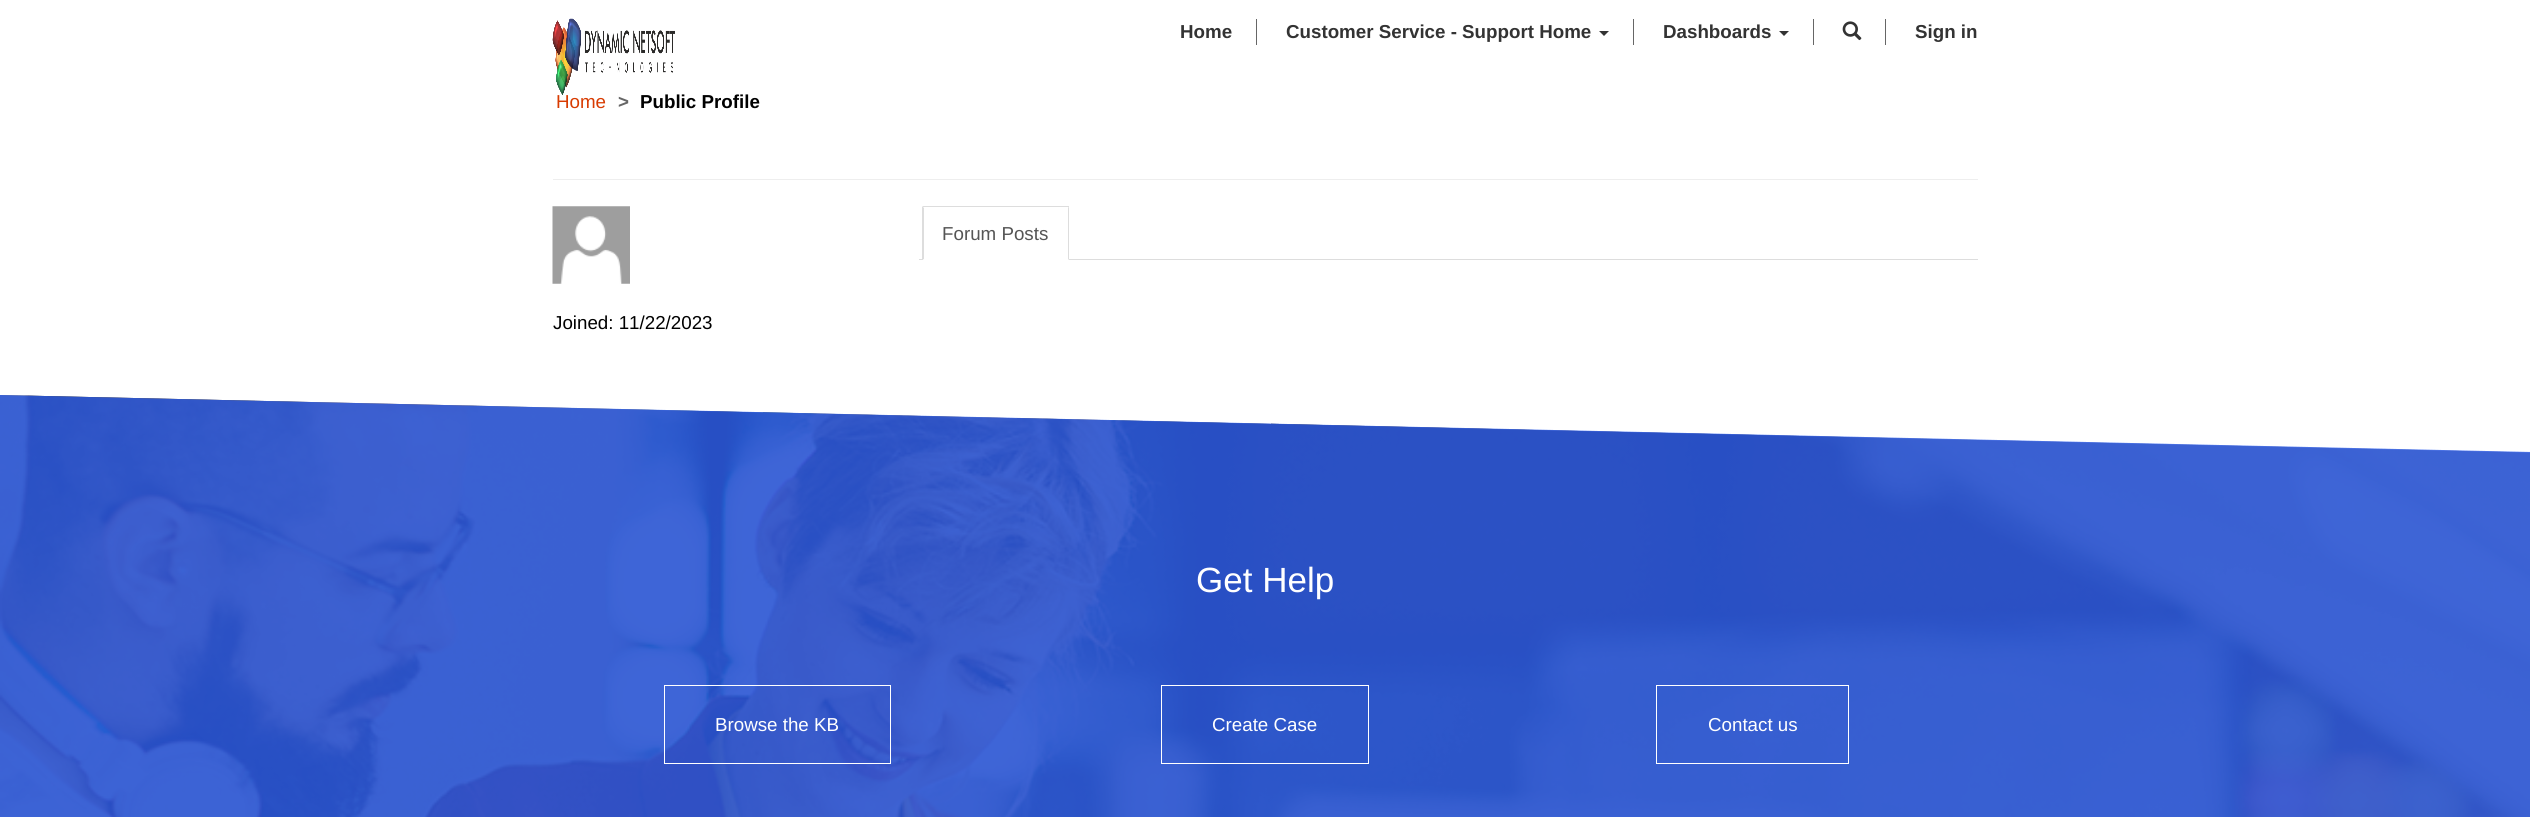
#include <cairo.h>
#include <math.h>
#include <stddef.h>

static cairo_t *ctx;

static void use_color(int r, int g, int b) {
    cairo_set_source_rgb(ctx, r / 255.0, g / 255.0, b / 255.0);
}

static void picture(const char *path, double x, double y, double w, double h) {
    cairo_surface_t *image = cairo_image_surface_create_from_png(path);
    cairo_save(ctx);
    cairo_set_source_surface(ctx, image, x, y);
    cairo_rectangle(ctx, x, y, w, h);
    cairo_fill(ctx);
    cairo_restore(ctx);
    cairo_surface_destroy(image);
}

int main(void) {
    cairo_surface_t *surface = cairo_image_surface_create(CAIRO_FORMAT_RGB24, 2530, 817);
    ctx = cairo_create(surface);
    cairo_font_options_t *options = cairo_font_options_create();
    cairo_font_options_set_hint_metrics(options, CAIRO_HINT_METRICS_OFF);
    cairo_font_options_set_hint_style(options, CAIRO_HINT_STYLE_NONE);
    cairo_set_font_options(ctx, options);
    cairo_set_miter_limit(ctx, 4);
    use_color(255, 255, 255);
    cairo_paint(ctx);
    cairo_select_font_face(ctx, "Liberation Sans", CAIRO_FONT_SLANT_NORMAL, CAIRO_FONT_WEIGHT_BOLD);
    cairo_set_font_size(ctx, 18.75);
    use_color(0, 0, 0);
    cairo_move_to(ctx, 640, 108);
    cairo_show_text(ctx, "Public Profile");
    picture("img1.png", 552, 18, 123, 77);
    use_color(51, 51, 51);
    cairo_move_to(ctx, 1180, 38);
    cairo_show_text(ctx, "Home");
    use_color(102, 102, 102);
    cairo_rectangle(ctx, 1256, 19, 1, 26);
    cairo_fill(ctx);
    use_color(51, 51, 51);
    cairo_move_to(ctx, 1286, 38);
    cairo_show_text(ctx, "Customer Service - Support Home");
    cairo_new_path(ctx);
    cairo_move_to(ctx, 1599, 31);
    cairo_line_to(ctx, 1609, 31);
    cairo_line_to(ctx, 1604, 36);
    cairo_close_path(ctx);
    cairo_fill(ctx);
    use_color(102, 102, 102);
    cairo_rectangle(ctx, 1633, 19, 1, 26);
    cairo_fill(ctx);
    use_color(51, 51, 51);
    cairo_move_to(ctx, 1663, 38);
    cairo_show_text(ctx, "Dashboards");
    cairo_new_path(ctx);
    cairo_move_to(ctx, 1779, 31);
    cairo_line_to(ctx, 1789, 31);
    cairo_line_to(ctx, 1784, 36);
    cairo_close_path(ctx);
    cairo_fill(ctx);
    use_color(102, 102, 102);
    cairo_rectangle(ctx, 1813, 19, 1, 26);
    cairo_fill(ctx);
    picture("img2.png", 1842, 21, 20, 20);
    cairo_rectangle(ctx, 1885, 19, 1, 26);
    cairo_fill(ctx);
    use_color(51, 51, 51);
    cairo_move_to(ctx, 1915, 38);
    cairo_show_text(ctx, "Sign in");
    cairo_select_font_face(ctx, "Liberation Sans", CAIRO_FONT_SLANT_NORMAL, CAIRO_FONT_WEIGHT_NORMAL);
    use_color(216, 59, 1);
    cairo_move_to(ctx, 556, 108);
    cairo_show_text(ctx, "Home");
    cairo_select_font_face(ctx, "Liberation Sans", CAIRO_FONT_SLANT_NORMAL, CAIRO_FONT_WEIGHT_BOLD);
    use_color(102, 102, 102);
    cairo_move_to(ctx, 618, 108);
    cairo_show_text(ctx, ">");
    use_color(238, 238, 238);
    cairo_rectangle(ctx, 553, 179, 1425, 1);
    cairo_fill(ctx);
    use_color(221, 221, 221);
    cairo_rectangle(ctx, 919, 259, 1059, 1);
    cairo_fill(ctx);
    use_color(255, 255, 255);
    cairo_rectangle(ctx, 923, 259, 146, 1);
    cairo_fill(ctx);
    use_color(221, 221, 221);
    cairo_rectangle(ctx, 923, 206, 146, 1);
    cairo_fill(ctx);
    cairo_new_path(ctx);
    cairo_move_to(ctx, 1069, 206);
    cairo_line_to(ctx, 1069, 260);
    cairo_line_to(ctx, 1068, 259);
    cairo_line_to(ctx, 1068, 208);
    cairo_close_path(ctx);
    cairo_fill(ctx);
    cairo_new_path(ctx);
    cairo_move_to(ctx, 922, 260);
    cairo_line_to(ctx, 922, 206);
    cairo_line_to(ctx, 924, 208);
    cairo_line_to(ctx, 924, 259);
    cairo_close_path(ctx);
    cairo_fill(ctx);
    cairo_select_font_face(ctx, "Liberation Sans", CAIRO_FONT_SLANT_NORMAL, CAIRO_FONT_WEIGHT_NORMAL);
    use_color(85, 85, 85);
    cairo_move_to(ctx, 942, 240);
    cairo_show_text(ctx, "Forum Posts");
    picture("img3.png", 552, 206, 78, 78);
    use_color(0, 0, 0);
    cairo_move_to(ctx, 553, 329);
    cairo_show_text(ctx, "Joined: 11/22/2023");
    picture("img4.png", 0, 395, 2530, 422);
    cairo_set_source_rgba(ctx, 0.184, 0.373, 0.937, 0.8);
    cairo_new_path(ctx);
    cairo_move_to(ctx, 0, 395);
    cairo_line_to(ctx, 0, 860);
    cairo_line_to(ctx, 1256, 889);
    cairo_line_to(ctx, 2530, 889);
    cairo_line_to(ctx, 2530, 452);
    cairo_close_path(ctx);
    cairo_fill(ctx);
    cairo_set_font_size(ctx, 35);
    use_color(255, 255, 255);
    cairo_move_to(ctx, 1196, 592);
    cairo_show_text(ctx, "Get Help");
    cairo_rectangle(ctx, 664.5, 685.5, 226, 78);
    cairo_set_line_width(ctx, 1);
    cairo_stroke(ctx);
    cairo_set_font_size(ctx, 18.75);
    cairo_move_to(ctx, 715, 731);
    cairo_show_text(ctx, "Browse the KB");
    cairo_rectangle(ctx, 1161.5, 685.5, 207, 78);
    cairo_stroke(ctx);
    cairo_move_to(ctx, 1212, 731);
    cairo_show_text(ctx, "Create Case");
    cairo_rectangle(ctx, 1656.5, 685.5, 192, 78);
    cairo_stroke(ctx);
    cairo_move_to(ctx, 1708, 731);
    cairo_show_text(ctx, "Contact us");
    cairo_surface_write_to_png(surface, "result.png");
    cairo_font_options_destroy(options);
    cairo_destroy(ctx);
    cairo_surface_destroy(surface);
    return 0;
}
